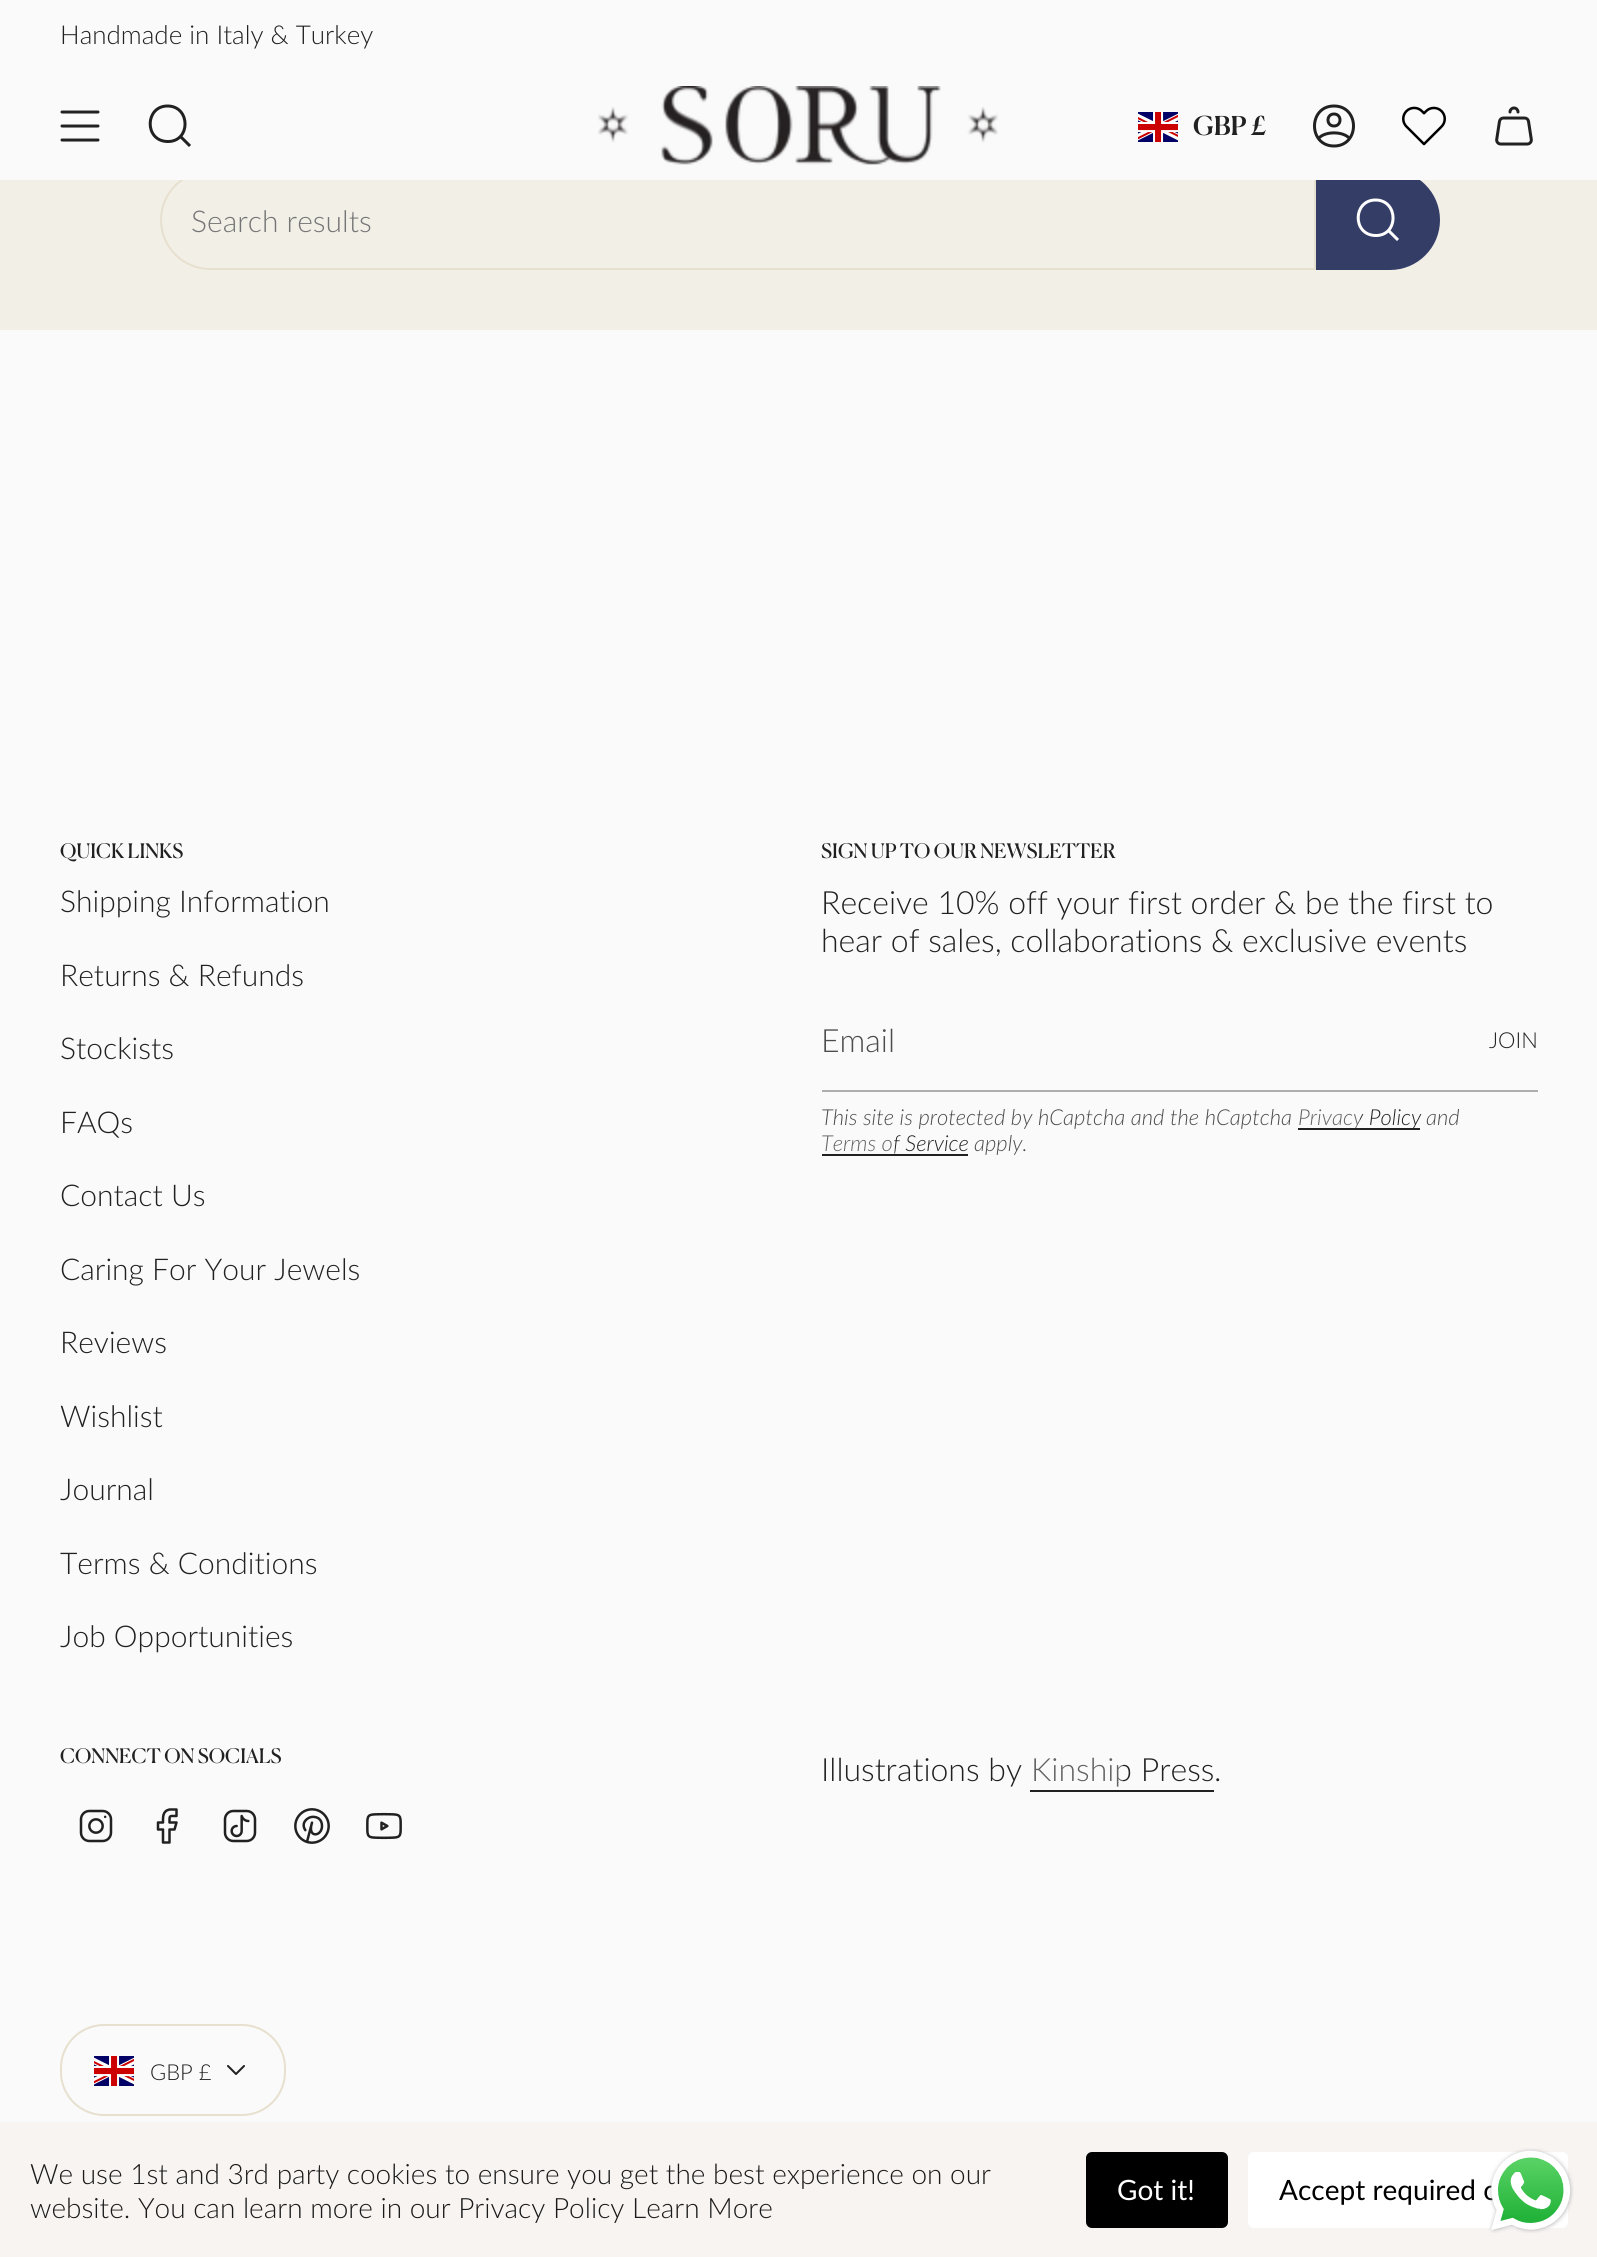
#include <cairo.h>
#include <math.h>
#include <stddef.h>

static cairo_t *ctx;

static void use_color(int r, int g, int b) {
    cairo_set_source_rgb(ctx, r / 255.0, g / 255.0, b / 255.0);
}

static void round_rect(double x, double y, double w, double h, double r) {
    cairo_new_sub_path(ctx);
    cairo_arc(ctx, x + w - r, y + h - r, r, 0, M_PI / 2);
    cairo_arc(ctx, x + r, y + h - r, r, M_PI / 2, M_PI);
    cairo_arc(ctx, x + r, y + r, r, M_PI, 1.5 * M_PI);
    cairo_arc(ctx, x + w - r, y + r, r, 1.5 * M_PI, 2 * M_PI);
    cairo_close_path(ctx);
}

static void picture(const char *path, double x, double y, double w, double h) {
    cairo_surface_t *image = cairo_image_surface_create_from_png(path);
    cairo_save(ctx);
    cairo_set_source_surface(ctx, image, x, y);
    cairo_rectangle(ctx, x, y, w, h);
    cairo_fill(ctx);
    cairo_restore(ctx);
    cairo_surface_destroy(image);
}

int main(void) {
    cairo_surface_t *surface = cairo_image_surface_create(CAIRO_FORMAT_RGB24, 1597, 2257);
    ctx = cairo_create(surface);
    cairo_font_options_t *options = cairo_font_options_create();
    cairo_font_options_set_hint_metrics(options, CAIRO_HINT_METRICS_OFF);
    cairo_font_options_set_hint_style(options, CAIRO_HINT_STYLE_NONE);
    cairo_set_font_options(ctx, options);
    cairo_set_miter_limit(ctx, 4);
    cairo_pattern_t *gradient;
    use_color(250, 250, 250);
    cairo_paint(ctx);
    cairo_select_font_face(ctx, "Lato Light", CAIRO_FONT_SLANT_NORMAL, CAIRO_FONT_WEIGHT_NORMAL);
    cairo_set_font_size(ctx, 26);
    use_color(33, 33, 33);
    cairo_move_to(ctx, 60, 44);
    cairo_show_text(ctx, "Handmade in Italy & Turkey");
    cairo_new_path(ctx);
    cairo_move_to(ctx, 62, 112);
    cairo_line_to(ctx, 98, 112);
    cairo_move_to(ctx, 62, 126);
    cairo_line_to(ctx, 98, 126);
    cairo_move_to(ctx, 62, 140);
    cairo_line_to(ctx, 98, 140);
    cairo_set_line_width(ctx, 3);
    cairo_set_line_cap(ctx, CAIRO_LINE_CAP_ROUND);
    cairo_set_line_join(ctx, CAIRO_LINE_JOIN_ROUND);
    cairo_stroke(ctx);
    cairo_new_path(ctx);
    cairo_move_to(ctx, 167.5, 106);
    cairo_curve_to(ctx, 191, 106, 191, 142.5, 167, 141.5);
    cairo_curve_to(ctx, 144, 140.5, 145, 106, 167.5, 106);
    cairo_close_path(ctx);
    cairo_move_to(ctx, 180, 136);
    cairo_line_to(ctx, 190, 146);
    cairo_set_line_cap(ctx, CAIRO_LINE_CAP_BUTT);
    cairo_set_line_join(ctx, CAIRO_LINE_JOIN_MITER);
    cairo_stroke(ctx);
    picture("img1.png", 598, 86, 400, 79);
    picture("img2.png", 1138, 112, 40, 30);
    cairo_select_font_face(ctx, "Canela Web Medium", CAIRO_FONT_SLANT_NORMAL, CAIRO_FONT_WEIGHT_NORMAL);
    cairo_move_to(ctx, 1193, 135);
    cairo_show_text(ctx, "GBP £");
    cairo_new_path(ctx);
    cairo_move_to(ctx, 1334, 106);
    cairo_curve_to(ctx, 1308, 106, 1308, 146, 1334, 146);
    cairo_curve_to(ctx, 1360, 146, 1360, 106, 1334, 106);
    cairo_close_path(ctx);
    cairo_move_to(ctx, 1318.5, 138.5);
    cairo_curve_to(ctx, 1324.5, 131, 1343.5, 131, 1349.5, 138.5);
    cairo_move_to(ctx, 1334, 126);
    cairo_curve_to(ctx, 1342, 126, 1342, 114, 1334, 114);
    cairo_curve_to(ctx, 1326, 114, 1326, 126, 1334, 126);
    cairo_close_path(ctx);
    cairo_set_line_cap(ctx, CAIRO_LINE_CAP_ROUND);
    cairo_set_line_join(ctx, CAIRO_LINE_JOIN_ROUND);
    cairo_stroke(ctx);
    picture("img3.png", 1402, 106, 44, 40);
    picture("img4.png", 1495, 106, 38, 40);
    use_color(242, 239, 231);
    cairo_rectangle(ctx, 0, 180, 1597, 150);
    cairo_fill(ctx);
    cairo_new_path(ctx);
    cairo_move_to(ctx, 210, 171);
    cairo_line_to(ctx, 1315, 171);
    cairo_line_to(ctx, 1315, 269);
    cairo_line_to(ctx, 210, 269);
    cairo_curve_to(ctx, 183, 269, 161, 247, 161, 220);
    cairo_curve_to(ctx, 161, 193, 183, 171, 210, 171);
    cairo_close_path(ctx);
    use_color(231, 224, 207);
    cairo_set_line_width(ctx, 2);
    cairo_set_line_cap(ctx, CAIRO_LINE_CAP_BUTT);
    cairo_set_line_join(ctx, CAIRO_LINE_JOIN_MITER);
    cairo_stroke(ctx);
    use_color(52, 61, 102);
    cairo_new_path(ctx);
    cairo_move_to(ctx, 1317, 171);
    cairo_line_to(ctx, 1390, 171);
    cairo_curve_to(ctx, 1417, 171, 1439, 193, 1439, 220);
    cairo_curve_to(ctx, 1439, 247, 1417, 269, 1390, 269);
    cairo_line_to(ctx, 1317, 269);
    cairo_close_path(ctx);
    cairo_fill_preserve(ctx);
    cairo_stroke(ctx);
    use_color(250, 250, 250);
    cairo_rectangle(ctx, 180, 170, 1240, 10);
    cairo_fill(ctx);
    cairo_select_font_face(ctx, "Lato Light", CAIRO_FONT_SLANT_NORMAL, CAIRO_FONT_WEIGHT_NORMAL);
    cairo_set_font_size(ctx, 30);
    use_color(117, 117, 117);
    cairo_move_to(ctx, 191, 232);
    cairo_show_text(ctx, "Search results");
    cairo_new_path(ctx);
    cairo_move_to(ctx, 1375.5, 200);
    cairo_curve_to(ctx, 1399, 200, 1399, 236.5, 1375, 235.5);
    cairo_curve_to(ctx, 1352, 234.5, 1353, 200, 1375.5, 200);
    cairo_close_path(ctx);
    cairo_move_to(ctx, 1388, 230);
    cairo_line_to(ctx, 1398, 240);
    use_color(255, 255, 255);
    cairo_set_line_width(ctx, 3);
    cairo_stroke(ctx);
    cairo_select_font_face(ctx, "Canela Web", CAIRO_FONT_SLANT_NORMAL, CAIRO_FONT_WEIGHT_NORMAL);
    cairo_set_font_size(ctx, 20);
    use_color(33, 33, 33);
    cairo_move_to(ctx, 60, 858);
    cairo_show_text(ctx, "QUICK LINKS");
    cairo_select_font_face(ctx, "Lato Light", CAIRO_FONT_SLANT_NORMAL, CAIRO_FONT_WEIGHT_NORMAL);
    cairo_set_font_size(ctx, 30);
    cairo_move_to(ctx, 60, 912);
    cairo_show_text(ctx, "Shipping Information");
    cairo_move_to(ctx, 60, 986);
    cairo_show_text(ctx, "Returns & Refunds");
    cairo_move_to(ctx, 60, 1059);
    cairo_show_text(ctx, "Stockists");
    cairo_move_to(ctx, 60, 1133);
    cairo_show_text(ctx, "FAQs");
    cairo_move_to(ctx, 60, 1206);
    cairo_show_text(ctx, "Contact Us");
    cairo_move_to(ctx, 60, 1280);
    cairo_show_text(ctx, "Caring For Your Jewels");
    cairo_move_to(ctx, 60, 1353);
    cairo_show_text(ctx, "Reviews");
    cairo_move_to(ctx, 60, 1427);
    cairo_show_text(ctx, "Wishlist");
    cairo_move_to(ctx, 60, 1500);
    cairo_show_text(ctx, "Journal");
    cairo_move_to(ctx, 60, 1574);
    cairo_show_text(ctx, "Terms & Conditions");
    cairo_move_to(ctx, 60, 1647);
    cairo_show_text(ctx, "Job Opportunities");
    cairo_select_font_face(ctx, "Canela Web", CAIRO_FONT_SLANT_NORMAL, CAIRO_FONT_WEIGHT_NORMAL);
    cairo_set_font_size(ctx, 20);
    cairo_move_to(ctx, 821, 858);
    cairo_show_text(ctx, "SIGN UP TO OUR NEWSLETTER");
    cairo_select_font_face(ctx, "Lato Light", CAIRO_FONT_SLANT_NORMAL, CAIRO_FONT_WEIGHT_NORMAL);
    cairo_set_font_size(ctx, 32);
    cairo_move_to(ctx, 821, 914);
    cairo_show_text(ctx, "Receive 10% off your first order & be the first to");
    cairo_move_to(ctx, 821, 952);
    cairo_show_text(ctx, "hear of sales, collaborations & exclusive events");
    use_color(174, 174, 174);
    cairo_rectangle(ctx, 822, 1090, 716, 2);
    cairo_fill(ctx);
    use_color(76, 76, 76);
    cairo_move_to(ctx, 821, 1052);
    cairo_show_text(ctx, "Email");
    cairo_set_font_size(ctx, 22);
    use_color(33, 33, 33);
    cairo_move_to(ctx, 1489, 1048);
    cairo_show_text(ctx, "JOIN");
    cairo_select_font_face(ctx, "Lato Light", CAIRO_FONT_SLANT_ITALIC, CAIRO_FONT_WEIGHT_NORMAL);
    use_color(76, 76, 76);
    cairo_move_to(ctx, 821, 1125);
    cairo_show_text(ctx, "This site is protected by hCaptcha and the hCaptcha");
    gradient = cairo_pattern_create_linear(1298, 1116, 1421, 1116);
    cairo_pattern_add_color_stop_rgba(gradient, 0, 0.384, 0.384, 0.384, 1);
    cairo_pattern_add_color_stop_rgba(gradient, 0.5, 0.384, 0.384, 0.384, 1);
    cairo_pattern_add_color_stop_rgba(gradient, 0.5, 0.129, 0.129, 0.129, 1);
    cairo_pattern_add_color_stop_rgba(gradient, 1, 0.129, 0.129, 0.129, 1);
    cairo_set_source(ctx, gradient);
    cairo_pattern_destroy(gradient);
    cairo_move_to(ctx, 1298, 1125);
    cairo_show_text(ctx, "Privacy Policy");
    use_color(33, 33, 33);
    cairo_rectangle(ctx, 1298, 1128, 122, 2);
    cairo_fill(ctx);
    use_color(76, 76, 76);
    cairo_move_to(ctx, 1426, 1125);
    cairo_show_text(ctx, "and");
    gradient = cairo_pattern_create_linear(821, 1142, 969, 1142);
    cairo_pattern_add_color_stop_rgba(gradient, 0, 0.384, 0.384, 0.384, 1);
    cairo_pattern_add_color_stop_rgba(gradient, 0.5, 0.384, 0.384, 0.384, 1);
    cairo_pattern_add_color_stop_rgba(gradient, 0.5, 0.129, 0.129, 0.129, 1);
    cairo_pattern_add_color_stop_rgba(gradient, 1, 0.129, 0.129, 0.129, 1);
    cairo_set_source(ctx, gradient);
    cairo_pattern_destroy(gradient);
    cairo_move_to(ctx, 821, 1151);
    cairo_show_text(ctx, "Terms of Service");
    use_color(33, 33, 33);
    cairo_rectangle(ctx, 822, 1154, 146, 2);
    cairo_fill(ctx);
    use_color(76, 76, 76);
    cairo_move_to(ctx, 974, 1151);
    cairo_show_text(ctx, "apply.");
    cairo_select_font_face(ctx, "Canela Web", CAIRO_FONT_SLANT_NORMAL, CAIRO_FONT_WEIGHT_NORMAL);
    cairo_set_font_size(ctx, 20);
    use_color(33, 33, 33);
    cairo_move_to(ctx, 60, 1763);
    cairo_show_text(ctx, "CONNECT ON SOCIALS");
    picture("img5.png", 79, 1809, 34, 34);
    cairo_new_path(ctx);
    cairo_move_to(ctx, 176.5, 1809.5);
    cairo_line_to(ctx, 169.5, 1809.5);
    cairo_curve_to(ctx, 162.5, 1811, 163, 1817, 163, 1822.5);
    cairo_line_to(ctx, 158, 1822.5);
    cairo_line_to(ctx, 158, 1829.5);
    cairo_line_to(ctx, 163, 1829.5);
    cairo_line_to(ctx, 163, 1842.5);
    cairo_line_to(ctx, 169.5, 1842.5);
    cairo_line_to(ctx, 169.5, 1829.5);
    cairo_line_to(ctx, 174.5, 1829.5);
    cairo_line_to(ctx, 176.5, 1822.5);
    cairo_line_to(ctx, 169.5, 1822.5);
    cairo_curve_to(ctx, 169.5, 1815, 169, 1816, 176.5, 1816);
    cairo_close_path(ctx);
    cairo_set_line_width(ctx, 2.5);
    cairo_set_line_cap(ctx, CAIRO_LINE_CAP_ROUND);
    cairo_set_line_join(ctx, CAIRO_LINE_JOIN_ROUND);
    cairo_stroke(ctx);
    picture("img6.png", 223, 1809, 34, 34);
    picture("img7.png", 294, 1808, 36, 36);
    picture("img8.png", 366, 1812, 36, 28);
    cairo_select_font_face(ctx, "Lato Light", CAIRO_FONT_SLANT_NORMAL, CAIRO_FONT_WEIGHT_NORMAL);
    cairo_set_font_size(ctx, 32);
    cairo_move_to(ctx, 821, 1781);
    cairo_show_text(ctx, "Illustrations by");
    gradient = cairo_pattern_create_linear(1031, 1770, 1214, 1770);
    cairo_pattern_add_color_stop_rgba(gradient, 0, 0.384, 0.384, 0.384, 1);
    cairo_pattern_add_color_stop_rgba(gradient, 0.5, 0.384, 0.384, 0.384, 1);
    cairo_pattern_add_color_stop_rgba(gradient, 0.5, 0.129, 0.129, 0.129, 1);
    cairo_pattern_add_color_stop_rgba(gradient, 1, 0.129, 0.129, 0.129, 1);
    cairo_set_source(ctx, gradient);
    cairo_pattern_destroy(gradient);
    cairo_move_to(ctx, 1031, 1781);
    cairo_show_text(ctx, "Kinship Press");
    use_color(33, 33, 33);
    cairo_rectangle(ctx, 1030, 1790, 184, 2);
    cairo_fill(ctx);
    cairo_move_to(ctx, 1214, 1781);
    cairo_show_text(ctx, ".");
    round_rect(61, 2025, 224, 90, 43);
    use_color(231, 224, 207);
    cairo_set_line_width(ctx, 2);
    cairo_set_line_cap(ctx, CAIRO_LINE_CAP_BUTT);
    cairo_set_line_join(ctx, CAIRO_LINE_JOIN_MITER);
    cairo_stroke(ctx);
    picture("img2.png", 94, 2056, 40, 30);
    cairo_set_font_size(ctx, 22);
    use_color(33, 33, 33);
    cairo_move_to(ctx, 150, 2080);
    cairo_show_text(ctx, "GBP £");
    cairo_new_path(ctx);
    cairo_move_to(ctx, 228, 2066);
    cairo_line_to(ctx, 236, 2074);
    cairo_line_to(ctx, 244, 2066);
    cairo_set_line_cap(ctx, CAIRO_LINE_CAP_ROUND);
    cairo_set_line_join(ctx, CAIRO_LINE_JOIN_ROUND);
    cairo_stroke(ctx);
    use_color(248, 244, 242);
    cairo_rectangle(ctx, 0, 2122, 1597, 135);
    cairo_fill(ctx);
    cairo_set_font_size(ctx, 28);
    use_color(26, 26, 26);
    cairo_move_to(ctx, 30, 2184);
    cairo_show_text(ctx, "We use 1st and 3rd party cookies to ensure you get the best experience on our");
    cairo_move_to(ctx, 30, 2218);
    cairo_show_text(ctx, "website. You can learn more in our Privacy Policy Learn More");
    use_color(0, 0, 0);
    round_rect(1086, 2152, 142, 76, 6);
    cairo_fill(ctx);
    cairo_select_font_face(ctx, "Lato", CAIRO_FONT_SLANT_NORMAL, CAIRO_FONT_WEIGHT_NORMAL);
    use_color(255, 255, 255);
    cairo_move_to(ctx, 1117, 2200);
    cairo_show_text(ctx, "Got it!");
    round_rect(1248, 2152, 320, 76, 6);
    cairo_fill(ctx);
    use_color(0, 0, 0);
    cairo_move_to(ctx, 1279, 2200);
    cairo_show_text(ctx, "Accept required o");
    picture("img9.png", 1488, 2148, 86, 85);
    cairo_surface_write_to_png(surface, "result.png");
    cairo_font_options_destroy(options);
    cairo_destroy(ctx);
    cairo_surface_destroy(surface);
    return 0;
}
